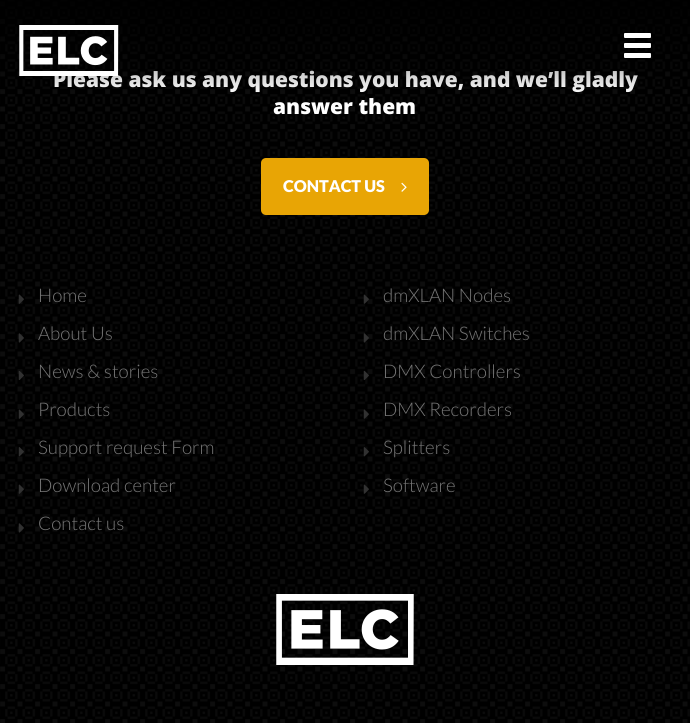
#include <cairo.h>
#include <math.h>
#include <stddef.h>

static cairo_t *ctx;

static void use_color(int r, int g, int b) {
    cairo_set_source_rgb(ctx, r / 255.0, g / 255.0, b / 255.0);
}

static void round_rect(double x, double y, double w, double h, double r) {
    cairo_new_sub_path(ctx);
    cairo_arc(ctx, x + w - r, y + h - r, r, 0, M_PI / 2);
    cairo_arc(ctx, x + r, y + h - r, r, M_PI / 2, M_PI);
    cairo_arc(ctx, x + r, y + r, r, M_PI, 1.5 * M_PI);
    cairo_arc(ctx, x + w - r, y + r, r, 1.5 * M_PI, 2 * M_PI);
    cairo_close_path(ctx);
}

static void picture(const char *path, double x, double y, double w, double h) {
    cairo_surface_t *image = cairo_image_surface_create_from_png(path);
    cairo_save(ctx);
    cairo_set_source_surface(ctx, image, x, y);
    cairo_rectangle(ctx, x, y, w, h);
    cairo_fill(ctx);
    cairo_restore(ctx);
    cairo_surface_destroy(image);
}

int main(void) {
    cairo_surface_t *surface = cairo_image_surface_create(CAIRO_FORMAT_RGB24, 690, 723);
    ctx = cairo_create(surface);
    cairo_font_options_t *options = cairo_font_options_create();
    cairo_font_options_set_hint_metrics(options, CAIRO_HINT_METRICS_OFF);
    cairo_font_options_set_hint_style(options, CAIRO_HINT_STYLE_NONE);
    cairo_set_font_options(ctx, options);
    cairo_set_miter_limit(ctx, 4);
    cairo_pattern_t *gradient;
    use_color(255, 255, 255);
    cairo_paint(ctx);
    picture("img1.png", 0, 0, 690, 723);
    cairo_select_font_face(ctx, "Open Sans ExtraBold", CAIRO_FONT_SLANT_NORMAL, CAIRO_FONT_WEIGHT_NORMAL);
    cairo_set_font_size(ctx, 21);
    use_color(255, 255, 255);
    cairo_move_to(ctx, 53, 87);
    cairo_show_text(ctx, "Please ask us any questions you have, and we’ll gladly");
    gradient = cairo_pattern_create_linear(345, 0, 345, 95);
    cairo_pattern_add_color_stop_rgba(gradient, 0, 0, 0, 0, 0.85);
    cairo_pattern_add_color_stop_rgba(gradient, 1, 0, 0, 0, 0);
    cairo_set_source(ctx, gradient);
    cairo_pattern_destroy(gradient);
    cairo_rectangle(ctx, 0, 0, 690, 92);
    cairo_fill(ctx);
    picture("img2.png", 19, 25, 100, 51);
    use_color(255, 255, 255);
    round_rect(624, 33, 27, 5, 1);
    cairo_fill(ctx);
    round_rect(624, 43, 27, 5, 1);
    cairo_fill(ctx);
    round_rect(624, 53, 27, 5, 1);
    cairo_fill(ctx);
    cairo_move_to(ctx, 273, 114);
    cairo_show_text(ctx, "answer them");
    use_color(232, 165, 5);
    round_rect(261, 158, 168, 57, 5);
    cairo_fill(ctx);
    cairo_select_font_face(ctx, "Lato Black", CAIRO_FONT_SLANT_NORMAL, CAIRO_FONT_WEIGHT_NORMAL);
    cairo_set_font_size(ctx, 16.25);
    use_color(255, 255, 255);
    cairo_move_to(ctx, 283, 192);
    cairo_show_text(ctx, "CONTACT US");
    picture("img3.png", 401, 182, 6, 10);
    picture("img4.png", 18, 294, 6, 10);
    cairo_select_font_face(ctx, "Lato Light", CAIRO_FONT_SLANT_NORMAL, CAIRO_FONT_WEIGHT_NORMAL);
    cairo_set_font_size(ctx, 18.75);
    use_color(118, 118, 118);
    cairo_move_to(ctx, 38, 302);
    cairo_show_text(ctx, "Home");
    picture("img5.png", 18, 333, 6, 10);
    cairo_move_to(ctx, 38, 340);
    cairo_show_text(ctx, "About Us");
    picture("img6.png", 18, 371, 6, 9);
    cairo_move_to(ctx, 38, 378);
    cairo_show_text(ctx, "News & stories");
    picture("img7.png", 18, 409, 6, 10);
    cairo_move_to(ctx, 38, 416);
    cairo_show_text(ctx, "Products");
    picture("img8.png", 18, 447, 6, 10);
    cairo_move_to(ctx, 38, 454);
    cairo_show_text(ctx, "Support request Form");
    picture("img9.png", 18, 484, 6, 10);
    cairo_move_to(ctx, 38, 492);
    cairo_show_text(ctx, "Download center");
    picture("img10.png", 18, 523, 6, 10);
    cairo_move_to(ctx, 38, 530);
    cairo_show_text(ctx, "Contact us");
    picture("img11.png", 363, 294, 6, 10);
    cairo_move_to(ctx, 383, 302);
    cairo_show_text(ctx, "dmXLAN Nodes");
    picture("img12.png", 363, 333, 6, 10);
    cairo_move_to(ctx, 383, 340);
    cairo_show_text(ctx, "dmXLAN Switches");
    picture("img13.png", 363, 370, 6, 10);
    cairo_move_to(ctx, 383, 378);
    cairo_show_text(ctx, "DMX Controllers");
    picture("img14.png", 363, 409, 6, 10);
    cairo_move_to(ctx, 383, 416);
    cairo_show_text(ctx, "DMX Recorders");
    picture("img15.png", 363, 447, 6, 10);
    cairo_move_to(ctx, 383, 454);
    cairo_show_text(ctx, "Splitters");
    picture("img16.png", 363, 484, 6, 10);
    cairo_move_to(ctx, 383, 492);
    cairo_show_text(ctx, "Software");
    picture("img17.png", 276, 594, 138, 71);
    cairo_surface_write_to_png(surface, "result.png");
    cairo_font_options_destroy(options);
    cairo_destroy(ctx);
    cairo_surface_destroy(surface);
    return 0;
}
